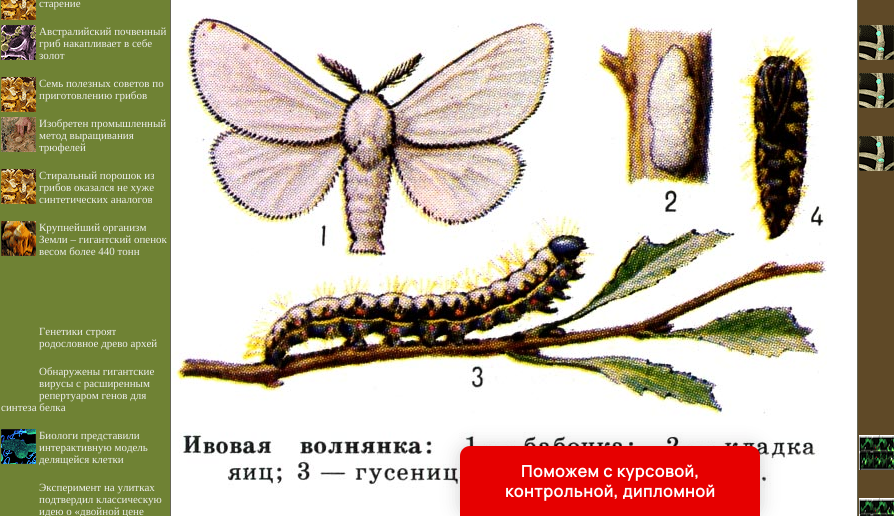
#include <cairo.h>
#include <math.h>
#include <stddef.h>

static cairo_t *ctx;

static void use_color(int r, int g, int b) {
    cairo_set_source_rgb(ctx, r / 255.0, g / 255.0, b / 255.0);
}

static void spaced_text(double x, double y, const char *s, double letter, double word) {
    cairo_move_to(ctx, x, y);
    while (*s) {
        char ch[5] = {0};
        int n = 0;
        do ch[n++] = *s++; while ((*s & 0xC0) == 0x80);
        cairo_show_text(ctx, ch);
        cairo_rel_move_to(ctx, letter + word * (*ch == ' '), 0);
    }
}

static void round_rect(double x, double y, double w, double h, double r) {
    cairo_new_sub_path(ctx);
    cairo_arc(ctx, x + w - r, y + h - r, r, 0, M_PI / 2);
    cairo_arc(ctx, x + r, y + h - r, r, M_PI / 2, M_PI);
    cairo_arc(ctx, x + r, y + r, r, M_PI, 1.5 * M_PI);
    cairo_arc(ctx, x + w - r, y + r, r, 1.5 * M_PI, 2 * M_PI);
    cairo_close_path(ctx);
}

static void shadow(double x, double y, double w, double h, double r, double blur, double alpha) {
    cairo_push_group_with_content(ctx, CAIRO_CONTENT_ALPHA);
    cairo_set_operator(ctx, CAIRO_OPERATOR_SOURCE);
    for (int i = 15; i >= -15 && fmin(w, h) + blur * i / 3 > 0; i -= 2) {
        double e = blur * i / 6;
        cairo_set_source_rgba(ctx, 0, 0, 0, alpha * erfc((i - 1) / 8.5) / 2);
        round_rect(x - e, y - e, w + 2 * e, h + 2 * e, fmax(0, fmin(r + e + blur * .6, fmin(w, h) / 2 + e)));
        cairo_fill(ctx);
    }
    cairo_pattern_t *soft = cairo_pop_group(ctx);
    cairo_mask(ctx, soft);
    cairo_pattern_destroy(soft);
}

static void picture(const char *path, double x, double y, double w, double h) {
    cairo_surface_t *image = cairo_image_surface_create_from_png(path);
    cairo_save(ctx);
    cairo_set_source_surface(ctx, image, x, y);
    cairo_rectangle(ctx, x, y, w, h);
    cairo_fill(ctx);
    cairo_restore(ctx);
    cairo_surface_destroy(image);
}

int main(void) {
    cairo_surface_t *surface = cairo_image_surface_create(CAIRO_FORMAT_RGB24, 894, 516);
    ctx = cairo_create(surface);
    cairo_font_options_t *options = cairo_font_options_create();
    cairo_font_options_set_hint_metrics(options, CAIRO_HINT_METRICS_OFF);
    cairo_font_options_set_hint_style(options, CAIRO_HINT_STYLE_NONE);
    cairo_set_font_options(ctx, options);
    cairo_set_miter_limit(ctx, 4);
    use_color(255, 255, 255);
    cairo_paint(ctx);
    use_color(111, 130, 52);
    cairo_rectangle(ctx, 0, 0, 170, 516);
    cairo_fill(ctx);
    picture("img1.png", 1, 0, 35, 20);
    cairo_select_font_face(ctx, "Liberation Serif", CAIRO_FONT_SLANT_NORMAL, CAIRO_FONT_WEIGHT_NORMAL);
    cairo_set_font_size(ctx, 11);
    use_color(238, 238, 238);
    cairo_move_to(ctx, 39, 7);
    cairo_show_text(ctx, "старение");
    picture("img2.png", 1, 25, 35, 35);
    cairo_move_to(ctx, 39, 35);
    cairo_show_text(ctx, "Австралийский почвенный");
    cairo_move_to(ctx, 39, 47);
    cairo_show_text(ctx, "гриб накапливает в себе");
    cairo_move_to(ctx, 39, 59);
    cairo_show_text(ctx, "золот");
    picture("img3.png", 1, 77, 35, 35);
    cairo_move_to(ctx, 39, 87);
    cairo_show_text(ctx, "Семь полезных советов по");
    cairo_move_to(ctx, 39, 99);
    cairo_show_text(ctx, "приготовлению грибов");
    picture("img4.png", 1, 117, 35, 35);
    cairo_move_to(ctx, 39, 127);
    cairo_show_text(ctx, "Изобретен промышленный");
    cairo_move_to(ctx, 39, 139);
    cairo_show_text(ctx, "метод выращивания");
    cairo_move_to(ctx, 39, 151);
    cairo_show_text(ctx, "трюфелей");
    picture("img3.png", 1, 169, 35, 35);
    cairo_move_to(ctx, 39, 179);
    cairo_show_text(ctx, "Стиральный порошок из");
    cairo_move_to(ctx, 39, 191);
    cairo_show_text(ctx, "грибов оказался не хуже");
    cairo_move_to(ctx, 39, 203);
    cairo_show_text(ctx, "синтетических аналогов");
    picture("img5.png", 1, 221, 35, 35);
    cairo_move_to(ctx, 39, 231);
    cairo_show_text(ctx, "Крупнейший организм");
    cairo_move_to(ctx, 39, 243);
    cairo_show_text(ctx, "Земли – гигантский опенок");
    cairo_move_to(ctx, 39, 255);
    cairo_show_text(ctx, "весом более 440 тонн");
    cairo_move_to(ctx, 39, 335);
    cairo_show_text(ctx, "Генетики строят");
    cairo_move_to(ctx, 39, 347);
    cairo_show_text(ctx, "родословное древо архей");
    cairo_move_to(ctx, 39, 375);
    cairo_show_text(ctx, "Обнаружены гигантские");
    cairo_move_to(ctx, 39, 387);
    cairo_show_text(ctx, "вирусы с расширенным");
    cairo_move_to(ctx, 39, 399);
    cairo_show_text(ctx, "репертуаром генов для");
    cairo_move_to(ctx, 1, 411);
    cairo_show_text(ctx, "синтеза белка");
    picture("img6.png", 1, 429, 35, 35);
    cairo_move_to(ctx, 39, 439);
    cairo_show_text(ctx, "Биологи представили");
    cairo_move_to(ctx, 39, 451);
    cairo_show_text(ctx, "интерактивную модель");
    cairo_move_to(ctx, 39, 463);
    cairo_show_text(ctx, "делящейся клетки");
    cairo_move_to(ctx, 39, 491);
    cairo_show_text(ctx, "Эксперимент на улитках");
    cairo_move_to(ctx, 39, 503);
    cairo_show_text(ctx, "подтвердил классическую");
    cairo_move_to(ctx, 39, 515);
    cairo_show_text(ctx, "идею о «двойной цене");
    cairo_rectangle(ctx, 170.5, -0.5, 687, 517);
    use_color(102, 102, 85);
    cairo_set_line_width(ctx, 1);
    cairo_stroke(ctx);
    picture("img7.png", 171, 16, 656, 500);
    use_color(95, 73, 39);
    cairo_rectangle(ctx, 858, 0, 36, 516);
    cairo_fill(ctx);
    picture("img8.png", 859, 25, 35, 35);
    picture("img8.png", 859, 73, 35, 35);
    picture("img8.png", 859, 136, 35, 35);
    picture("img9.png", 859, 435, 35, 35);
    picture("img10.png", 859, 498, 35, 18);
    use_color(0, 0, 0);
    shadow(460, 446, 300, 70, 10, 9.5, 0.18);
    use_color(230, 0, 0);
    cairo_new_path(ctx);
    cairo_move_to(ctx, 470, 446);
    cairo_line_to(ctx, 750, 446);
    cairo_curve_to(ctx, 755.5, 446, 760, 450.5, 760, 456);
    cairo_line_to(ctx, 760, 516);
    cairo_line_to(ctx, 460, 516);
    cairo_line_to(ctx, 460, 456);
    cairo_curve_to(ctx, 460, 450.5, 464.5, 446, 470, 446);
    cairo_close_path(ctx);
    cairo_fill(ctx);
    cairo_select_font_face(ctx, "Manrope", CAIRO_FONT_SLANT_NORMAL, CAIRO_FONT_WEIGHT_BOLD);
    cairo_set_font_size(ctx, 16);
    use_color(255, 255, 255);
    spaced_text(521, 477, "Поможем с курсовой,", 0.65, 0);
    spaced_text(505, 497, "контрольной, дипломной", 0.65, 0);
    cairo_surface_write_to_png(surface, "result.png");
    cairo_font_options_destroy(options);
    cairo_destroy(ctx);
    cairo_surface_destroy(surface);
    return 0;
}
